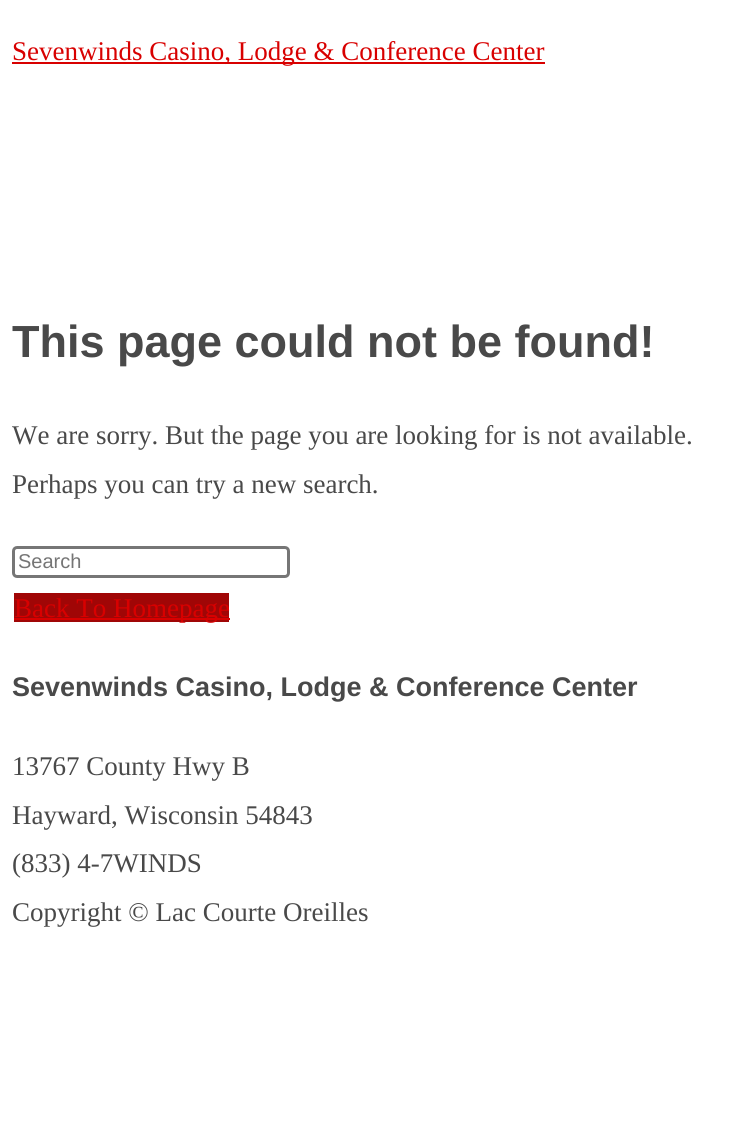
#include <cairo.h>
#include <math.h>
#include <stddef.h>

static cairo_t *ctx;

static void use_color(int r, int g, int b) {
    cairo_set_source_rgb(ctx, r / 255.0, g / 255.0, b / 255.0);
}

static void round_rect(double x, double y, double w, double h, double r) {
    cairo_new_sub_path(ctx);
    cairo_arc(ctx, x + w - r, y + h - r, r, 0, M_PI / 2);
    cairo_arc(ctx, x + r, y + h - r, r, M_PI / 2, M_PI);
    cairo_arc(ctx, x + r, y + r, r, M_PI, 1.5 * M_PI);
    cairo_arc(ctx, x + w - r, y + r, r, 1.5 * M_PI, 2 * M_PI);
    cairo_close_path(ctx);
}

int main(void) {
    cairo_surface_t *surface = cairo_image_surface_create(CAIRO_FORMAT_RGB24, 743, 1147);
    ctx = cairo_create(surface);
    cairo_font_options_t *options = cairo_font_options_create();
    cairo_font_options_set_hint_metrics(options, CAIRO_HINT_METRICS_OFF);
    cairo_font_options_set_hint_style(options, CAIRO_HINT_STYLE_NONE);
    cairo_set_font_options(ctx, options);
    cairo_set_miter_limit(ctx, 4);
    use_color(255, 255, 255);
    cairo_paint(ctx);
    use_color(216, 0, 0);
    cairo_rectangle(ctx, 12, 62, 533, 2);
    cairo_fill(ctx);
    cairo_select_font_face(ctx, "Liberation Serif", CAIRO_FONT_SLANT_NORMAL, CAIRO_FONT_WEIGHT_NORMAL);
    cairo_set_font_size(ctx, 27);
    cairo_move_to(ctx, 12, 60);
    cairo_show_text(ctx, "Sevenwinds Casino, Lodge & Conference Center");
    cairo_select_font_face(ctx, "Liberation Sans", CAIRO_FONT_SLANT_NORMAL, CAIRO_FONT_WEIGHT_BOLD);
    cairo_set_font_size(ctx, 45);
    use_color(73, 73, 73);
    cairo_move_to(ctx, 12, 357);
    cairo_show_text(ctx, "This page could not be found!");
    cairo_select_font_face(ctx, "Liberation Serif", CAIRO_FONT_SLANT_NORMAL, CAIRO_FONT_WEIGHT_NORMAL);
    cairo_set_font_size(ctx, 27);
    cairo_move_to(ctx, 12, 444);
    cairo_show_text(ctx, "We are sorry. But the page you are looking for is not available.");
    cairo_move_to(ctx, 12, 493);
    cairo_show_text(ctx, "Perhaps you can try a new search.");
    round_rect(13.5, 547.5, 275, 29, 3.5);
    use_color(118, 118, 118);
    cairo_set_line_width(ctx, 3);
    cairo_stroke(ctx);
    cairo_select_font_face(ctx, "Liberation Sans", CAIRO_FONT_SLANT_NORMAL, CAIRO_FONT_WEIGHT_NORMAL);
    cairo_set_font_size(ctx, 20);
    use_color(117, 117, 117);
    cairo_move_to(ctx, 18, 568);
    cairo_show_text(ctx, "Search");
    use_color(160, 6, 6);
    cairo_rectangle(ctx, 14, 593, 215, 29);
    cairo_fill(ctx);
    use_color(216, 0, 0);
    cairo_rectangle(ctx, 14, 618, 216, 2);
    cairo_fill(ctx);
    cairo_select_font_face(ctx, "Liberation Serif", CAIRO_FONT_SLANT_NORMAL, CAIRO_FONT_WEIGHT_NORMAL);
    cairo_set_font_size(ctx, 27);
    cairo_move_to(ctx, 14, 617);
    cairo_show_text(ctx, "Back To Homepage");
    cairo_select_font_face(ctx, "Liberation Sans", CAIRO_FONT_SLANT_NORMAL, CAIRO_FONT_WEIGHT_BOLD);
    use_color(73, 73, 73);
    cairo_move_to(ctx, 12, 696);
    cairo_show_text(ctx, "Sevenwinds Casino, Lodge & Conference Center");
    cairo_select_font_face(ctx, "Liberation Serif", CAIRO_FONT_SLANT_NORMAL, CAIRO_FONT_WEIGHT_NORMAL);
    cairo_move_to(ctx, 12, 775);
    cairo_show_text(ctx, "13767 County Hwy B");
    cairo_move_to(ctx, 12, 824);
    cairo_show_text(ctx, "Hayward, Wisconsin 54843");
    cairo_move_to(ctx, 12, 872);
    cairo_show_text(ctx, "(833) 4-7WINDS");
    cairo_move_to(ctx, 12, 921);
    cairo_show_text(ctx, "Copyright © Lac Courte Oreilles");
    cairo_surface_write_to_png(surface, "result.png");
    cairo_font_options_destroy(options);
    cairo_destroy(ctx);
    cairo_surface_destroy(surface);
    return 0;
}
